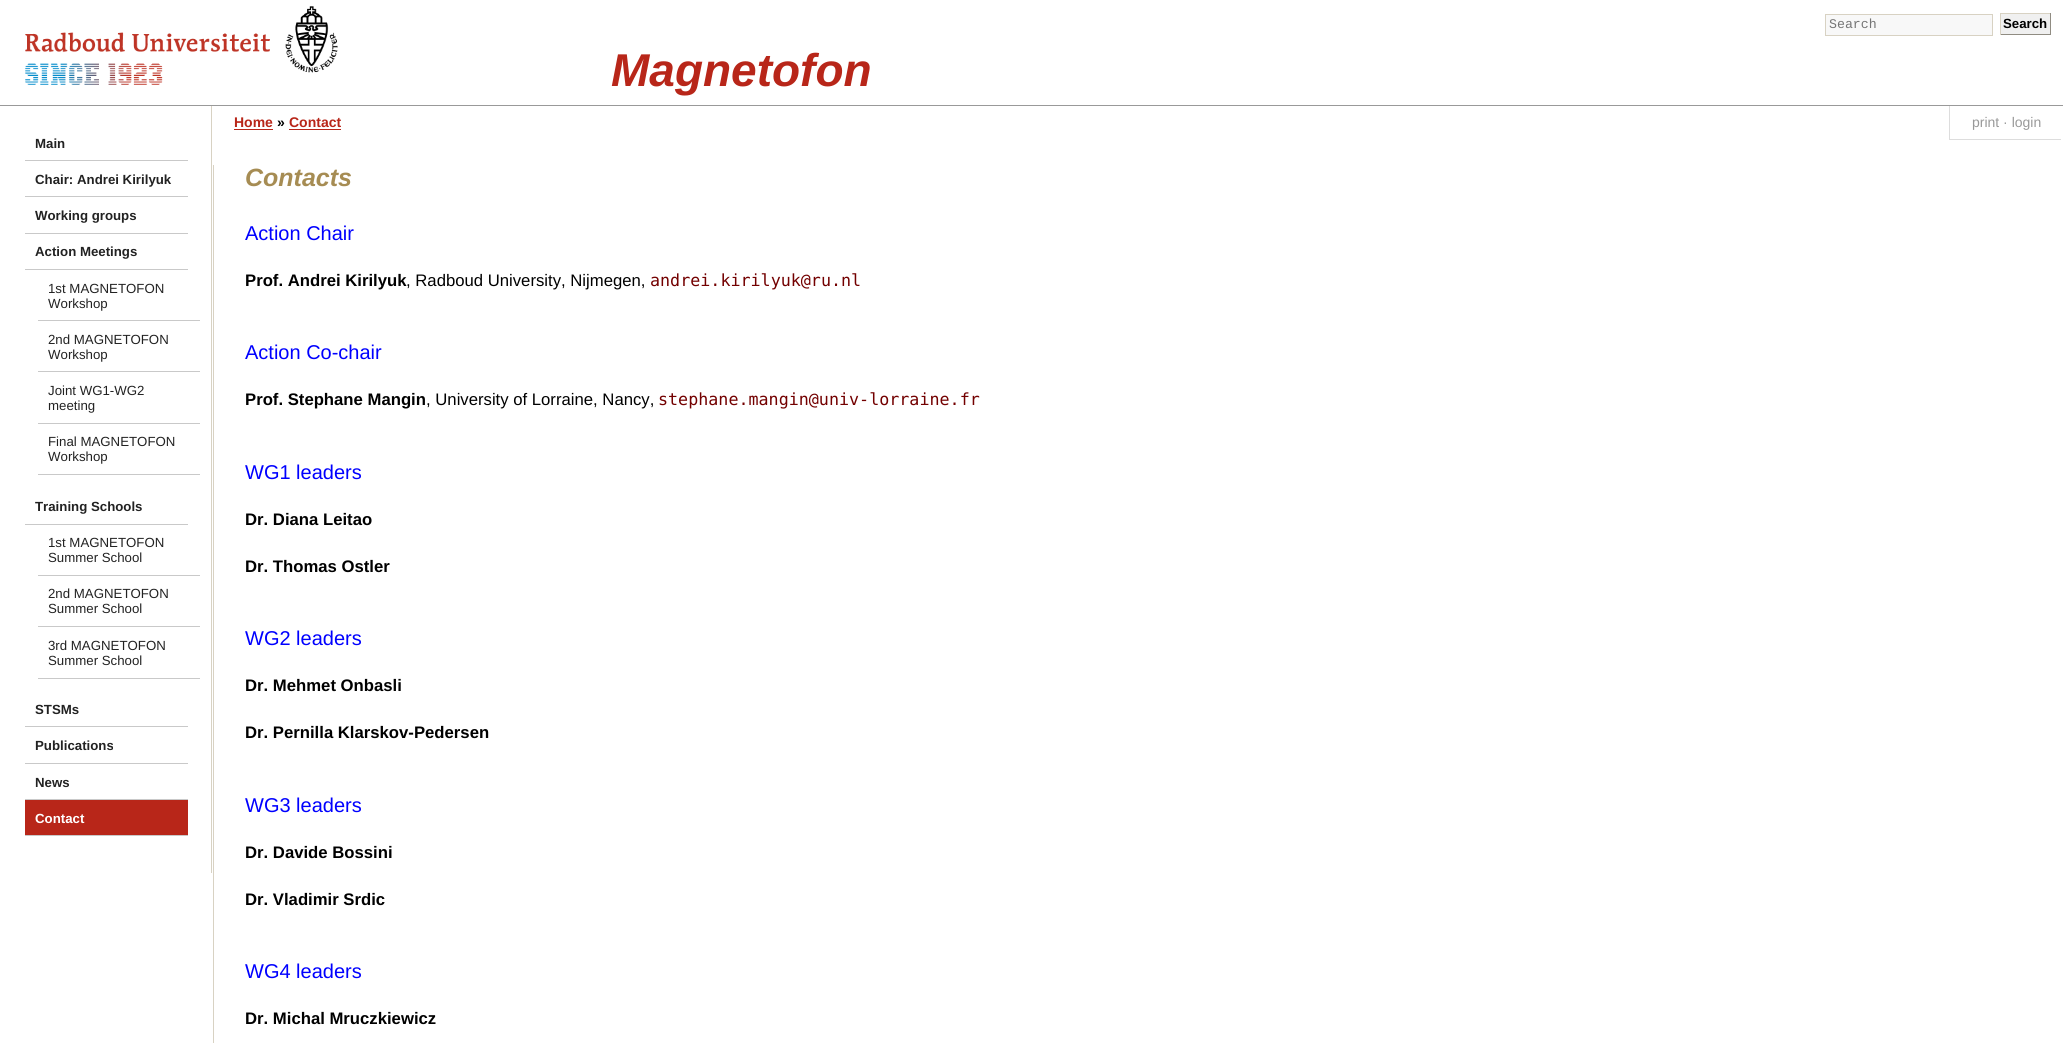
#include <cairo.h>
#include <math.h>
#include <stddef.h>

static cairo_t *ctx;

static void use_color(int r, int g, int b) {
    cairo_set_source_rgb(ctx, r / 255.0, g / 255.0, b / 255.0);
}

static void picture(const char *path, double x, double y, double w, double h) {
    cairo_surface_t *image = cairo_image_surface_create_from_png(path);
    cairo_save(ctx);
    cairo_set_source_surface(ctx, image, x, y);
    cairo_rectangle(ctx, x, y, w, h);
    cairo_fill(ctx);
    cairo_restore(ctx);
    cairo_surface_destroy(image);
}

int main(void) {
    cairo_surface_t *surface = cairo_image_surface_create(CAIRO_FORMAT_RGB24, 2063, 1043);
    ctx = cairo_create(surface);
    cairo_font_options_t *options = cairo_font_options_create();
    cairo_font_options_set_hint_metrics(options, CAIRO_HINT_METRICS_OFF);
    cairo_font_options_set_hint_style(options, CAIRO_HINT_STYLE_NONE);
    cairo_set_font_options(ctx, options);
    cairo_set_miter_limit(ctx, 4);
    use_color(255, 255, 255);
    cairo_paint(ctx);
    use_color(248, 248, 248);
    cairo_rectangle(ctx, 1825.5, 14.5, 167, 21);
    cairo_fill_preserve(ctx);
    use_color(216, 210, 195);
    cairo_set_line_width(ctx, 1);
    cairo_stroke(ctx);
    cairo_select_font_face(ctx, "Liberation Mono", CAIRO_FONT_SLANT_NORMAL, CAIRO_FONT_WEIGHT_NORMAL);
    cairo_set_font_size(ctx, 13.25);
    use_color(117, 117, 117);
    cairo_move_to(ctx, 1829, 28);
    cairo_show_text(ctx, "Search");
    use_color(240, 240, 240);
    cairo_rectangle(ctx, 2001, 14, 49, 20);
    cairo_fill(ctx);
    use_color(216, 210, 195);
    cairo_rectangle(ctx, 2000, 13, 51, 1);
    cairo_fill(ctx);
    use_color(144, 140, 130);
    cairo_rectangle(ctx, 2050, 13, 1, 22);
    cairo_fill(ctx);
    cairo_rectangle(ctx, 2000, 34, 51, 1);
    cairo_fill(ctx);
    use_color(216, 210, 195);
    cairo_rectangle(ctx, 2000, 13, 1, 22);
    cairo_fill(ctx);
    cairo_select_font_face(ctx, "Liberation Sans", CAIRO_FONT_SLANT_NORMAL, CAIRO_FONT_WEIGHT_BOLD);
    use_color(0, 0, 0);
    cairo_move_to(ctx, 2003, 28);
    cairo_show_text(ctx, "Search");
    use_color(153, 153, 153);
    cairo_rectangle(ctx, 0, 105, 2063, 1);
    cairo_fill(ctx);
    picture("img1.png", 25, 6, 313, 79);
    cairo_select_font_face(ctx, "Liberation Sans", CAIRO_FONT_SLANT_ITALIC, CAIRO_FONT_WEIGHT_BOLD);
    cairo_set_font_size(ctx, 46);
    use_color(184, 38, 25);
    cairo_move_to(ctx, 611, 86);
    cairo_show_text(ctx, "Magnetofon");
    use_color(216, 210, 195);
    cairo_rectangle(ctx, 211, 106, 1, 767);
    cairo_fill(ctx);
    use_color(201, 201, 201);
    cairo_rectangle(ctx, 25, 160, 163, 1);
    cairo_fill(ctx);
    cairo_select_font_face(ctx, "Liberation Sans", CAIRO_FONT_SLANT_NORMAL, CAIRO_FONT_WEIGHT_BOLD);
    cairo_set_font_size(ctx, 13.25);
    use_color(34, 34, 34);
    cairo_move_to(ctx, 35, 148);
    cairo_show_text(ctx, "Main");
    use_color(201, 201, 201);
    cairo_rectangle(ctx, 25, 196, 163, 1);
    cairo_fill(ctx);
    use_color(34, 34, 34);
    cairo_move_to(ctx, 35, 184);
    cairo_show_text(ctx, "Chair: Andrei Kirilyuk");
    use_color(201, 201, 201);
    cairo_rectangle(ctx, 25, 233, 163, 1);
    cairo_fill(ctx);
    use_color(34, 34, 34);
    cairo_move_to(ctx, 35, 220);
    cairo_show_text(ctx, "Working groups");
    use_color(201, 201, 201);
    cairo_rectangle(ctx, 25, 269, 163, 1);
    cairo_fill(ctx);
    use_color(34, 34, 34);
    cairo_move_to(ctx, 35, 256);
    cairo_show_text(ctx, "Action Meetings");
    use_color(201, 201, 201);
    cairo_rectangle(ctx, 38, 320, 162, 1);
    cairo_fill(ctx);
    cairo_select_font_face(ctx, "Liberation Sans", CAIRO_FONT_SLANT_NORMAL, CAIRO_FONT_WEIGHT_NORMAL);
    use_color(34, 34, 34);
    cairo_move_to(ctx, 48, 293);
    cairo_show_text(ctx, "1st MAGNETOFON");
    cairo_move_to(ctx, 48, 308);
    cairo_show_text(ctx, "Workshop");
    use_color(201, 201, 201);
    cairo_rectangle(ctx, 38, 371, 162, 1);
    cairo_fill(ctx);
    use_color(34, 34, 34);
    cairo_move_to(ctx, 48, 344);
    cairo_show_text(ctx, "2nd MAGNETOFON");
    cairo_move_to(ctx, 48, 359);
    cairo_show_text(ctx, "Workshop");
    use_color(201, 201, 201);
    cairo_rectangle(ctx, 38, 423, 162, 1);
    cairo_fill(ctx);
    use_color(34, 34, 34);
    cairo_move_to(ctx, 48, 395);
    cairo_show_text(ctx, "Joint WG1-WG2");
    cairo_move_to(ctx, 48, 410);
    cairo_show_text(ctx, "meeting");
    use_color(201, 201, 201);
    cairo_rectangle(ctx, 38, 474, 162, 1);
    cairo_fill(ctx);
    use_color(34, 34, 34);
    cairo_move_to(ctx, 48, 446);
    cairo_show_text(ctx, "Final MAGNETOFON");
    cairo_move_to(ctx, 48, 461);
    cairo_show_text(ctx, "Workshop");
    use_color(201, 201, 201);
    cairo_rectangle(ctx, 25, 524, 163, 1);
    cairo_fill(ctx);
    cairo_select_font_face(ctx, "Liberation Sans", CAIRO_FONT_SLANT_NORMAL, CAIRO_FONT_WEIGHT_BOLD);
    use_color(34, 34, 34);
    cairo_move_to(ctx, 35, 511);
    cairo_show_text(ctx, "Training Schools");
    use_color(201, 201, 201);
    cairo_rectangle(ctx, 38, 575, 162, 1);
    cairo_fill(ctx);
    cairo_select_font_face(ctx, "Liberation Sans", CAIRO_FONT_SLANT_NORMAL, CAIRO_FONT_WEIGHT_NORMAL);
    use_color(34, 34, 34);
    cairo_move_to(ctx, 48, 547);
    cairo_show_text(ctx, "1st MAGNETOFON");
    cairo_move_to(ctx, 48, 562);
    cairo_show_text(ctx, "Summer School");
    use_color(201, 201, 201);
    cairo_rectangle(ctx, 38, 626, 162, 1);
    cairo_fill(ctx);
    use_color(34, 34, 34);
    cairo_move_to(ctx, 48, 598);
    cairo_show_text(ctx, "2nd MAGNETOFON");
    cairo_move_to(ctx, 48, 613);
    cairo_show_text(ctx, "Summer School");
    use_color(201, 201, 201);
    cairo_rectangle(ctx, 38, 678, 162, 1);
    cairo_fill(ctx);
    use_color(34, 34, 34);
    cairo_move_to(ctx, 48, 650);
    cairo_show_text(ctx, "3rd MAGNETOFON");
    cairo_move_to(ctx, 48, 665);
    cairo_show_text(ctx, "Summer School");
    use_color(201, 201, 201);
    cairo_rectangle(ctx, 25, 726, 163, 1);
    cairo_fill(ctx);
    cairo_select_font_face(ctx, "Liberation Sans", CAIRO_FONT_SLANT_NORMAL, CAIRO_FONT_WEIGHT_BOLD);
    use_color(34, 34, 34);
    cairo_move_to(ctx, 35, 714);
    cairo_show_text(ctx, "STSMs");
    use_color(201, 201, 201);
    cairo_rectangle(ctx, 25, 763, 163, 1);
    cairo_fill(ctx);
    use_color(34, 34, 34);
    cairo_move_to(ctx, 35, 750);
    cairo_show_text(ctx, "Publications");
    use_color(201, 201, 201);
    cairo_rectangle(ctx, 25, 799, 163, 1);
    cairo_fill(ctx);
    use_color(34, 34, 34);
    cairo_move_to(ctx, 35, 787);
    cairo_show_text(ctx, "News");
    use_color(184, 38, 25);
    cairo_rectangle(ctx, 25, 800, 163, 35);
    cairo_fill(ctx);
    use_color(201, 201, 201);
    cairo_rectangle(ctx, 25, 835, 163, 1);
    cairo_fill(ctx);
    use_color(255, 255, 255);
    cairo_move_to(ctx, 35, 823);
    cairo_show_text(ctx, "Contact");
    cairo_set_font_size(ctx, 14);
    use_color(184, 38, 25);
    cairo_move_to(ctx, 234, 127);
    cairo_show_text(ctx, "Home");
    cairo_rectangle(ctx, 234, 129, 39, 1);
    cairo_fill(ctx);
    use_color(0, 0, 0);
    cairo_move_to(ctx, 277, 127);
    cairo_show_text(ctx, "»");
    use_color(184, 38, 25);
    cairo_move_to(ctx, 289, 127);
    cairo_show_text(ctx, "Contact");
    cairo_rectangle(ctx, 289, 129, 52, 1);
    cairo_fill(ctx);
    use_color(221, 221, 221);
    cairo_rectangle(ctx, 1949, 139, 112, 1);
    cairo_fill(ctx);
    cairo_rectangle(ctx, 1949, 106, 1, 34);
    cairo_fill(ctx);
    cairo_select_font_face(ctx, "Liberation Sans", CAIRO_FONT_SLANT_NORMAL, CAIRO_FONT_WEIGHT_NORMAL);
    use_color(153, 153, 153);
    cairo_move_to(ctx, 1972, 127);
    cairo_show_text(ctx, "print · login");
    use_color(216, 210, 195);
    cairo_rectangle(ctx, 213, 165, 1, 878);
    cairo_fill(ctx);
    cairo_select_font_face(ctx, "Liberation Sans", CAIRO_FONT_SLANT_ITALIC, CAIRO_FONT_WEIGHT_BOLD);
    cairo_set_font_size(ctx, 25);
    use_color(166, 140, 83);
    cairo_move_to(ctx, 245, 186);
    cairo_show_text(ctx, "Contacts");
    cairo_select_font_face(ctx, "Liberation Sans", CAIRO_FONT_SLANT_NORMAL, CAIRO_FONT_WEIGHT_NORMAL);
    cairo_set_font_size(ctx, 20);
    use_color(0, 0, 255);
    cairo_move_to(ctx, 245, 240);
    cairo_show_text(ctx, "Action Chair");
    cairo_select_font_face(ctx, "Liberation Sans", CAIRO_FONT_SLANT_NORMAL, CAIRO_FONT_WEIGHT_BOLD);
    cairo_set_font_size(ctx, 16.7);
    use_color(0, 0, 0);
    cairo_move_to(ctx, 245, 286);
    cairo_show_text(ctx, "Prof. Andrei Kirilyuk");
    cairo_select_font_face(ctx, "Liberation Sans", CAIRO_FONT_SLANT_NORMAL, CAIRO_FONT_WEIGHT_NORMAL);
    cairo_move_to(ctx, 406, 286);
    cairo_show_text(ctx, ", Radboud University, Nijmegen,");
    cairo_select_font_face(ctx, "DejaVu Sans Mono", CAIRO_FONT_SLANT_NORMAL, CAIRO_FONT_WEIGHT_NORMAL);
    use_color(115, 0, 0);
    cairo_move_to(ctx, 650, 286);
    cairo_show_text(ctx, "andrei.kirilyuk@ru.nl");
    cairo_select_font_face(ctx, "Liberation Sans", CAIRO_FONT_SLANT_NORMAL, CAIRO_FONT_WEIGHT_NORMAL);
    cairo_set_font_size(ctx, 20);
    use_color(0, 0, 255);
    cairo_move_to(ctx, 245, 359);
    cairo_show_text(ctx, "Action Co-chair");
    cairo_select_font_face(ctx, "Liberation Sans", CAIRO_FONT_SLANT_NORMAL, CAIRO_FONT_WEIGHT_BOLD);
    cairo_set_font_size(ctx, 16.7);
    use_color(0, 0, 0);
    cairo_move_to(ctx, 245, 405);
    cairo_show_text(ctx, "Prof. Stephane Mangin");
    cairo_select_font_face(ctx, "Liberation Sans", CAIRO_FONT_SLANT_NORMAL, CAIRO_FONT_WEIGHT_NORMAL);
    cairo_move_to(ctx, 426, 405);
    cairo_show_text(ctx, ", University of Lorraine, Nancy,");
    cairo_select_font_face(ctx, "DejaVu Sans Mono", CAIRO_FONT_SLANT_NORMAL, CAIRO_FONT_WEIGHT_NORMAL);
    use_color(115, 0, 0);
    cairo_move_to(ctx, 658, 405);
    cairo_show_text(ctx, "stephane.mangin@univ-lorraine.fr");
    cairo_select_font_face(ctx, "Liberation Sans", CAIRO_FONT_SLANT_NORMAL, CAIRO_FONT_WEIGHT_NORMAL);
    cairo_set_font_size(ctx, 20);
    use_color(0, 0, 255);
    cairo_move_to(ctx, 245, 479);
    cairo_show_text(ctx, "WG1 leaders");
    cairo_select_font_face(ctx, "Liberation Sans", CAIRO_FONT_SLANT_NORMAL, CAIRO_FONT_WEIGHT_BOLD);
    cairo_set_font_size(ctx, 16.7);
    use_color(0, 0, 0);
    cairo_move_to(ctx, 245, 525);
    cairo_show_text(ctx, "Dr. Diana Leitao");
    cairo_move_to(ctx, 245, 572);
    cairo_show_text(ctx, "Dr. Thomas Ostler");
    cairo_select_font_face(ctx, "Liberation Sans", CAIRO_FONT_SLANT_NORMAL, CAIRO_FONT_WEIGHT_NORMAL);
    cairo_set_font_size(ctx, 20);
    use_color(0, 0, 255);
    cairo_move_to(ctx, 245, 645);
    cairo_show_text(ctx, "WG2 leaders");
    cairo_select_font_face(ctx, "Liberation Sans", CAIRO_FONT_SLANT_NORMAL, CAIRO_FONT_WEIGHT_BOLD);
    cairo_set_font_size(ctx, 16.7);
    use_color(0, 0, 0);
    cairo_move_to(ctx, 245, 691);
    cairo_show_text(ctx, "Dr. Mehmet Onbasli");
    cairo_move_to(ctx, 245, 738);
    cairo_show_text(ctx, "Dr. Pernilla Klarskov-Pedersen");
    cairo_select_font_face(ctx, "Liberation Sans", CAIRO_FONT_SLANT_NORMAL, CAIRO_FONT_WEIGHT_NORMAL);
    cairo_set_font_size(ctx, 20);
    use_color(0, 0, 255);
    cairo_move_to(ctx, 245, 812);
    cairo_show_text(ctx, "WG3 leaders");
    cairo_select_font_face(ctx, "Liberation Sans", CAIRO_FONT_SLANT_NORMAL, CAIRO_FONT_WEIGHT_BOLD);
    cairo_set_font_size(ctx, 16.7);
    use_color(0, 0, 0);
    cairo_move_to(ctx, 245, 858);
    cairo_show_text(ctx, "Dr. Davide Bossini");
    cairo_move_to(ctx, 245, 905);
    cairo_show_text(ctx, "Dr. Vladimir Srdic");
    cairo_select_font_face(ctx, "Liberation Sans", CAIRO_FONT_SLANT_NORMAL, CAIRO_FONT_WEIGHT_NORMAL);
    cairo_set_font_size(ctx, 20);
    use_color(0, 0, 255);
    cairo_move_to(ctx, 245, 978);
    cairo_show_text(ctx, "WG4 leaders");
    cairo_select_font_face(ctx, "Liberation Sans", CAIRO_FONT_SLANT_NORMAL, CAIRO_FONT_WEIGHT_BOLD);
    cairo_set_font_size(ctx, 16.7);
    use_color(0, 0, 0);
    cairo_move_to(ctx, 245, 1024);
    cairo_show_text(ctx, "Dr. Michal Mruczkiewicz");
    cairo_surface_write_to_png(surface, "result.png");
    cairo_font_options_destroy(options);
    cairo_destroy(ctx);
    cairo_surface_destroy(surface);
    return 0;
}
